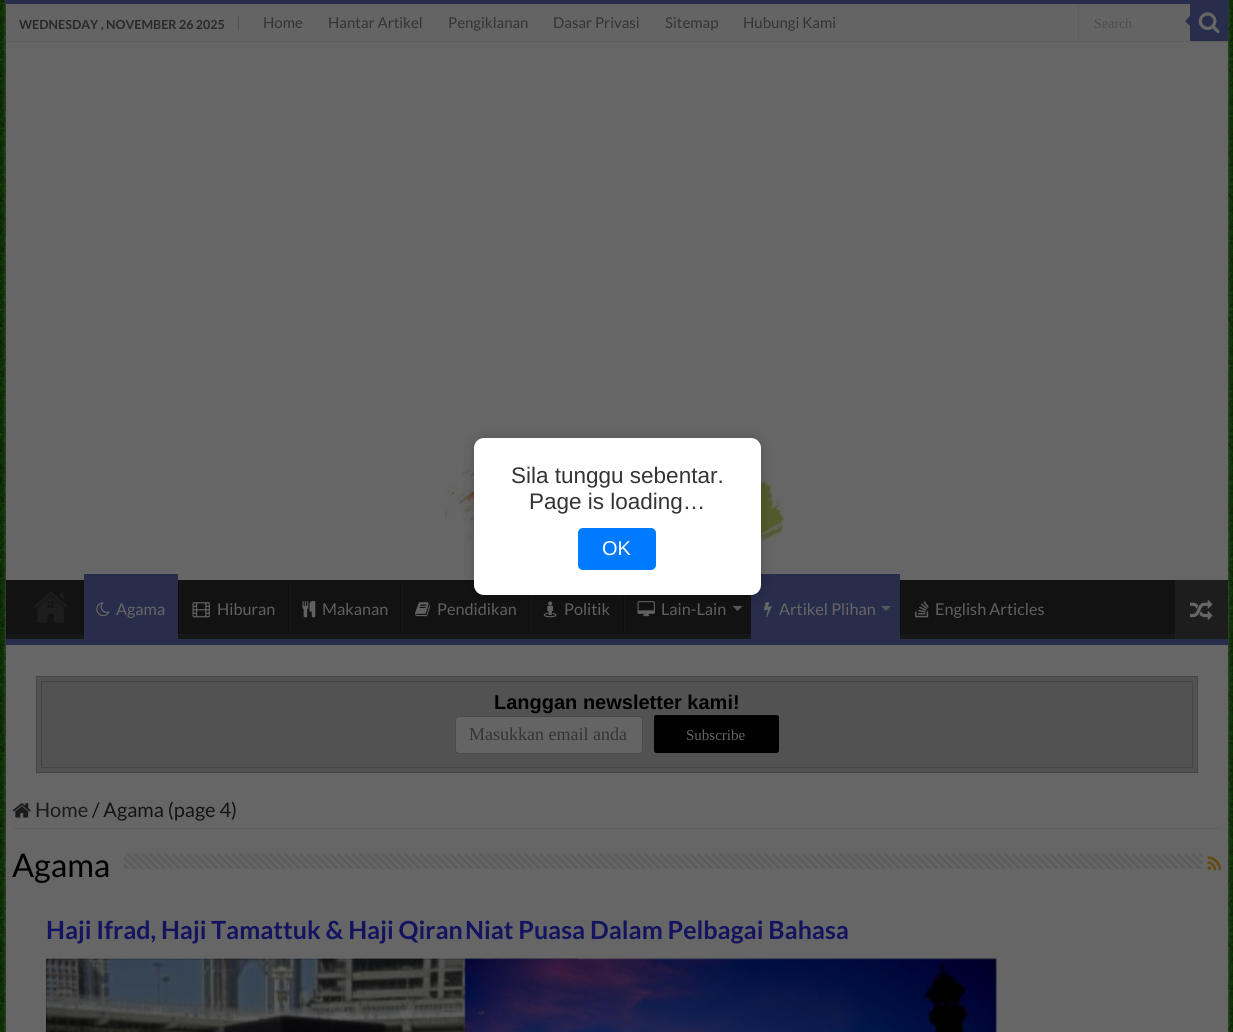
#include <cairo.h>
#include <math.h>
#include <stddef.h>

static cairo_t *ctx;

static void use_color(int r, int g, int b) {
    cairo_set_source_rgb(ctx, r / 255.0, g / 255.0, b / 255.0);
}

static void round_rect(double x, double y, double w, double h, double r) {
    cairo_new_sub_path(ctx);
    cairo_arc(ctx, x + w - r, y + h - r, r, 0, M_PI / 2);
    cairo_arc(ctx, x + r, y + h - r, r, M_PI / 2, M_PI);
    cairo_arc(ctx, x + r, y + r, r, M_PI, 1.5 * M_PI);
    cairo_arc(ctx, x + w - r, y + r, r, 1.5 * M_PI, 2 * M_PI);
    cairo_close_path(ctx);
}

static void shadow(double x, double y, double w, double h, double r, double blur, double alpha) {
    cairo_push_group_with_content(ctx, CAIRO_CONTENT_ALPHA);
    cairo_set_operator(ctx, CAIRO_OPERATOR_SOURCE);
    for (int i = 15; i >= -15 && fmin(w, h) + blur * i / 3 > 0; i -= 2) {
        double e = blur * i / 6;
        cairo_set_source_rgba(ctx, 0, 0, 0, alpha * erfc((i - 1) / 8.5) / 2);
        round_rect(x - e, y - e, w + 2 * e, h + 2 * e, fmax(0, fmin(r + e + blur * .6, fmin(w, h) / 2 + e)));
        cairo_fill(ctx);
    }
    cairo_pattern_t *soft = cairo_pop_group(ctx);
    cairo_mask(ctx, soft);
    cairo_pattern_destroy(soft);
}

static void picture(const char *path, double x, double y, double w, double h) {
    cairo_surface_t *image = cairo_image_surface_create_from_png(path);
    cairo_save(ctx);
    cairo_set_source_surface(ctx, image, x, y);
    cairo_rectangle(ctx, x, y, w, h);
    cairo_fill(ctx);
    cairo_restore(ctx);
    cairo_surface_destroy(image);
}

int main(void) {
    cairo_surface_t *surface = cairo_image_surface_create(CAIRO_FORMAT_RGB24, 1233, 1032);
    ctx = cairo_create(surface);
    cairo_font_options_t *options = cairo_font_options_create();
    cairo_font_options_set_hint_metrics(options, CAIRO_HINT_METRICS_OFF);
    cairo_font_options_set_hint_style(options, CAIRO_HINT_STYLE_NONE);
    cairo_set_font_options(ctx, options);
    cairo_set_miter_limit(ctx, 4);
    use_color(255, 255, 255);
    cairo_paint(ctx);
    picture("img1.png", 0, 0, 1233, 1032);
    use_color(81, 81, 81);
    shadow(6, 0, 1222, 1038, 0, 2, 1);
    use_color(102, 102, 102);
    cairo_rectangle(ctx, 6, 43, 1222, 989);
    cairo_fill(ctx);
    use_color(39, 45, 74);
    cairo_rectangle(ctx, 6, 0, 1222, 4);
    cairo_fill(ctx);
    use_color(100, 100, 100);
    cairo_rectangle(ctx, 6, 4, 1222, 39);
    cairo_fill(ctx);
    use_color(94, 94, 94);
    cairo_rectangle(ctx, 6, 41, 1222, 1);
    cairo_fill(ctx);
    use_color(82, 82, 82);
    cairo_rectangle(ctx, 238, 16, 1, 15);
    cairo_fill(ctx);
    cairo_select_font_face(ctx, "Lato", CAIRO_FONT_SLANT_NORMAL, CAIRO_FONT_WEIGHT_BOLD);
    cairo_set_font_size(ctx, 12.5);
    use_color(41, 41, 41);
    cairo_move_to(ctx, 19, 29);
    cairo_show_text(ctx, "WEDNESDAY , NOVEMBER 26 2025");
    cairo_select_font_face(ctx, "Lato", CAIRO_FONT_SLANT_NORMAL, CAIRO_FONT_WEIGHT_NORMAL);
    cairo_set_font_size(ctx, 15);
    use_color(52, 52, 52);
    cairo_move_to(ctx, 263, 28);
    cairo_show_text(ctx, "Home");
    cairo_move_to(ctx, 328, 28);
    cairo_show_text(ctx, "Hantar Artikel");
    cairo_move_to(ctx, 448, 28);
    cairo_show_text(ctx, "Pengiklanan");
    cairo_move_to(ctx, 553, 28);
    cairo_show_text(ctx, "Dasar Privasi");
    cairo_move_to(ctx, 665, 28);
    cairo_show_text(ctx, "Sitemap");
    cairo_move_to(ctx, 743, 28);
    cairo_show_text(ctx, "Hubungi Kami");
    use_color(94, 94, 94);
    cairo_rectangle(ctx, 1078, 4, 1, 36);
    cairo_fill(ctx);
    cairo_select_font_face(ctx, "Liberation Serif", CAIRO_FONT_SLANT_NORMAL, CAIRO_FONT_WEIGHT_NORMAL);
    cairo_set_font_size(ctx, 14);
    use_color(79, 79, 79);
    cairo_move_to(ctx, 1094, 28);
    cairo_show_text(ctx, "Search");
    use_color(39, 45, 74);
    cairo_rectangle(ctx, 1190, 4, 38, 37);
    cairo_fill(ctx);
    picture("img2.png", 1198, 12, 22, 22);
    cairo_new_path(ctx);
    cairo_move_to(ctx, 1190, 16);
    cairo_line_to(ctx, 1190, 26);
    cairo_line_to(ctx, 1185, 21);
    cairo_close_path(ctx);
    cairo_fill(ctx);
    picture("img3.png", 445, 442, 344, 113);
    use_color(18, 18, 18);
    cairo_rectangle(ctx, 6, 580, 1169, 54);
    cairo_fill(ctx);
    cairo_save(ctx);
    cairo_rectangle(ctx, 6, 580, 1222, 59);
    cairo_clip(ctx);
    use_color(23, 23, 23);
    cairo_set_fill_rule(ctx, CAIRO_FILL_RULE_EVEN_ODD);
    cairo_new_path(ctx);
    cairo_move_to(ctx, -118, 456);
    cairo_line_to(ctx, 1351, 456);
    cairo_line_to(ctx, 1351, 762);
    cairo_line_to(ctx, -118, 762);
    cairo_close_path(ctx);
    cairo_move_to(ctx, 5, 572);
    cairo_line_to(ctx, 1226, 572);
    cairo_curve_to(ctx, 1227, 572, 1228, 573, 1228, 574);
    cairo_line_to(ctx, 1228, 632);
    cairo_curve_to(ctx, 1228, 633, 1227, 634, 1226, 634);
    cairo_line_to(ctx, 5, 634);
    cairo_curve_to(ctx, 4, 634, 4, 633, 4, 632);
    cairo_line_to(ctx, 4, 574);
    cairo_curve_to(ctx, 4, 573, 4, 572, 5, 572);
    cairo_close_path(ctx);
    cairo_fill(ctx);
    cairo_restore(ctx);
    use_color(39, 45, 74);
    cairo_rectangle(ctx, 6, 639, 1222, 6);
    cairo_fill(ctx);
    picture("img4.png", 33, 591, 36, 32);
    cairo_rectangle(ctx, 84, 574, 94, 65);
    cairo_fill(ctx);
    picture("img5.png", 96, 602, 14, 15);
    cairo_select_font_face(ctx, "Lato", CAIRO_FONT_SLANT_NORMAL, CAIRO_FONT_WEIGHT_NORMAL);
    cairo_set_font_size(ctx, 16.25);
    use_color(102, 102, 102);
    cairo_move_to(ctx, 116, 615);
    cairo_show_text(ctx, "Agama");
    use_color(14, 14, 14);
    cairo_rectangle(ctx, 178, 580, 1, 53);
    cairo_fill(ctx);
    use_color(22, 22, 22);
    cairo_rectangle(ctx, 179, 580, 1, 53);
    cairo_fill(ctx);
    picture("img6.png", 192, 602, 18, 16);
    use_color(96, 96, 96);
    cairo_move_to(ctx, 217, 615);
    cairo_show_text(ctx, "Hiburan");
    use_color(14, 14, 14);
    cairo_rectangle(ctx, 288, 580, 1, 53);
    cairo_fill(ctx);
    use_color(22, 22, 22);
    cairo_rectangle(ctx, 289, 580, 1, 53);
    cairo_fill(ctx);
    picture("img7.png", 302, 601, 14, 17);
    use_color(96, 96, 96);
    cairo_move_to(ctx, 322, 615);
    cairo_show_text(ctx, "Makanan");
    use_color(14, 14, 14);
    cairo_rectangle(ctx, 400, 580, 1, 53);
    cairo_fill(ctx);
    use_color(22, 22, 22);
    cairo_rectangle(ctx, 401, 580, 1, 53);
    cairo_fill(ctx);
    picture("img8.png", 415, 602, 16, 15);
    use_color(96, 96, 96);
    cairo_move_to(ctx, 437, 615);
    cairo_show_text(ctx, "Pendidikan");
    use_color(14, 14, 14);
    cairo_rectangle(ctx, 529, 595, 1, 38);
    cairo_fill(ctx);
    use_color(22, 22, 22);
    cairo_rectangle(ctx, 530, 595, 1, 38);
    cairo_fill(ctx);
    picture("img9.png", 543, 601, 14, 17);
    use_color(96, 96, 96);
    cairo_move_to(ctx, 564, 615);
    cairo_show_text(ctx, "Politik");
    use_color(14, 14, 14);
    cairo_rectangle(ctx, 623, 595, 1, 38);
    cairo_fill(ctx);
    use_color(22, 22, 22);
    cairo_rectangle(ctx, 624, 595, 1, 38);
    cairo_fill(ctx);
    picture("img10.png", 637, 601, 18, 16);
    use_color(96, 96, 96);
    cairo_move_to(ctx, 661, 615);
    cairo_show_text(ctx, "Lain-Lain");
    use_color(88, 88, 88);
    cairo_new_path(ctx);
    cairo_move_to(ctx, 732.5, 606);
    cairo_line_to(ctx, 742.5, 606);
    cairo_line_to(ctx, 737.5, 611);
    cairo_close_path(ctx);
    cairo_fill(ctx);
    use_color(39, 45, 74);
    cairo_rectangle(ctx, 751, 574, 149, 65);
    cairo_fill(ctx);
    picture("img11.png", 763, 602, 9, 16);
    use_color(102, 102, 102);
    cairo_move_to(ctx, 779, 615);
    cairo_show_text(ctx, "Artikel Plihan");
    use_color(88, 88, 88);
    cairo_new_path(ctx);
    cairo_move_to(ctx, 881, 606);
    cairo_line_to(ctx, 891, 606);
    cairo_line_to(ctx, 886, 611);
    cairo_close_path(ctx);
    cairo_fill(ctx);
    use_color(14, 14, 14);
    cairo_rectangle(ctx, 900, 580, 1, 53);
    cairo_fill(ctx);
    use_color(22, 22, 22);
    cairo_rectangle(ctx, 901, 580, 1, 53);
    cairo_fill(ctx);
    picture("img12.png", 915, 601, 14, 17);
    use_color(96, 96, 96);
    cairo_move_to(ctx, 935, 615);
    cairo_show_text(ctx, "English Articles");
    use_color(29, 29, 29);
    cairo_rectangle(ctx, 1175, 580, 53, 59);
    cairo_fill(ctx);
    picture("img13.png", 1190, 599, 23, 21);
    use_color(82, 82, 82);
    cairo_rectangle(ctx, 36.5, 676.5, 1161, 96);
    cairo_fill_preserve(ctx);
    use_color(69, 69, 69);
    cairo_set_line_width(ctx, 1);
    cairo_stroke(ctx);
    cairo_rectangle(ctx, 41.5, 681.5, 1151, 86);
    cairo_stroke(ctx);
    cairo_select_font_face(ctx, "Liberation Sans", CAIRO_FONT_SLANT_NORMAL, CAIRO_FONT_WEIGHT_BOLD);
    cairo_set_font_size(ctx, 20);
    use_color(0, 0, 0);
    cairo_move_to(ctx, 494, 709);
    cairo_show_text(ctx, "Langgan newsletter kami!");
    use_color(100, 100, 100);
    round_rect(455.5, 716.5, 187, 37, 3.5);
    cairo_fill_preserve(ctx);
    use_color(75, 75, 75);
    cairo_stroke(ctx);
    cairo_select_font_face(ctx, "Liberation Serif", CAIRO_FONT_SLANT_NORMAL, CAIRO_FONT_WEIGHT_NORMAL);
    cairo_set_font_size(ctx, 18);
    use_color(52, 52, 52);
    cairo_move_to(ctx, 469, 740);
    cairo_show_text(ctx, "Masukkan email anda");
    use_color(0, 0, 0);
    round_rect(654, 715, 125, 38, 2.5);
    cairo_fill(ctx);
    cairo_set_font_size(ctx, 15);
    use_color(102, 102, 102);
    cairo_move_to(ctx, 686, 740);
    cairo_show_text(ctx, "Subscribe");
    use_color(95, 95, 95);
    cairo_rectangle(ctx, 13, 828, 1208, 1);
    cairo_fill(ctx);
    picture("img14.png", 12, 803, 19, 15);
    cairo_select_font_face(ctx, "Lato", CAIRO_FONT_SLANT_NORMAL, CAIRO_FONT_WEIGHT_NORMAL);
    cairo_set_font_size(ctx, 20);
    use_color(27, 27, 27);
    cairo_move_to(ctx, 35, 817);
    cairo_show_text(ctx, "Home");
    use_color(20, 20, 20);
    cairo_move_to(ctx, 92, 817);
    cairo_show_text(ctx, "/ Agama (page 4)");
    cairo_set_font_size(ctx, 32.5);
    use_color(0, 0, 0);
    cairo_move_to(ctx, 12, 877);
    cairo_show_text(ctx, "Agama");
    picture("img15.png", 123, 853, 1080, 16);
    picture("img16.png", 1207, 856, 14, 14);
    cairo_select_font_face(ctx, "Lato", CAIRO_FONT_SLANT_NORMAL, CAIRO_FONT_WEIGHT_BOLD);
    cairo_set_font_size(ctx, 25);
    use_color(19, 19, 95);
    cairo_move_to(ctx, 46, 939);
    cairo_show_text(ctx, "Haji Ifrad, Haji Tamattuk & Haji Qiran");
    use_color(0, 0, 0);
    cairo_rectangle(ctx, 46, 959, 532, 73);
    cairo_fill(ctx);
    picture("img17.png", 46, 958, 532, 74);
    use_color(19, 19, 95);
    cairo_move_to(ctx, 465, 939);
    cairo_show_text(ctx, "Niat Puasa Dalam Pelbagai Bahasa");
    picture("img18.png", 464, 958, 533, 74);
    use_color(0, 0, 0);
    shadow(474, 438, 287, 157, 10, 6, 0.2);
    use_color(255, 255, 255);
    round_rect(474, 438, 287, 157, 10);
    cairo_fill(ctx);
    cairo_select_font_face(ctx, "Liberation Sans", CAIRO_FONT_SLANT_NORMAL, CAIRO_FONT_WEIGHT_NORMAL);
    cairo_set_font_size(ctx, 22.5);
    use_color(52, 52, 52);
    cairo_move_to(ctx, 511, 483);
    cairo_show_text(ctx, "Sila tunggu sebentar.");
    cairo_move_to(ctx, 529, 509);
    cairo_show_text(ctx, "Page is loading…");
    use_color(0, 123, 255);
    round_rect(578, 528, 78, 42, 5);
    cairo_fill(ctx);
    cairo_set_font_size(ctx, 20);
    use_color(255, 255, 255);
    cairo_move_to(ctx, 602, 555);
    cairo_show_text(ctx, "OK");
    cairo_surface_write_to_png(surface, "result.png");
    cairo_font_options_destroy(options);
    cairo_destroy(ctx);
    cairo_surface_destroy(surface);
    return 0;
}
